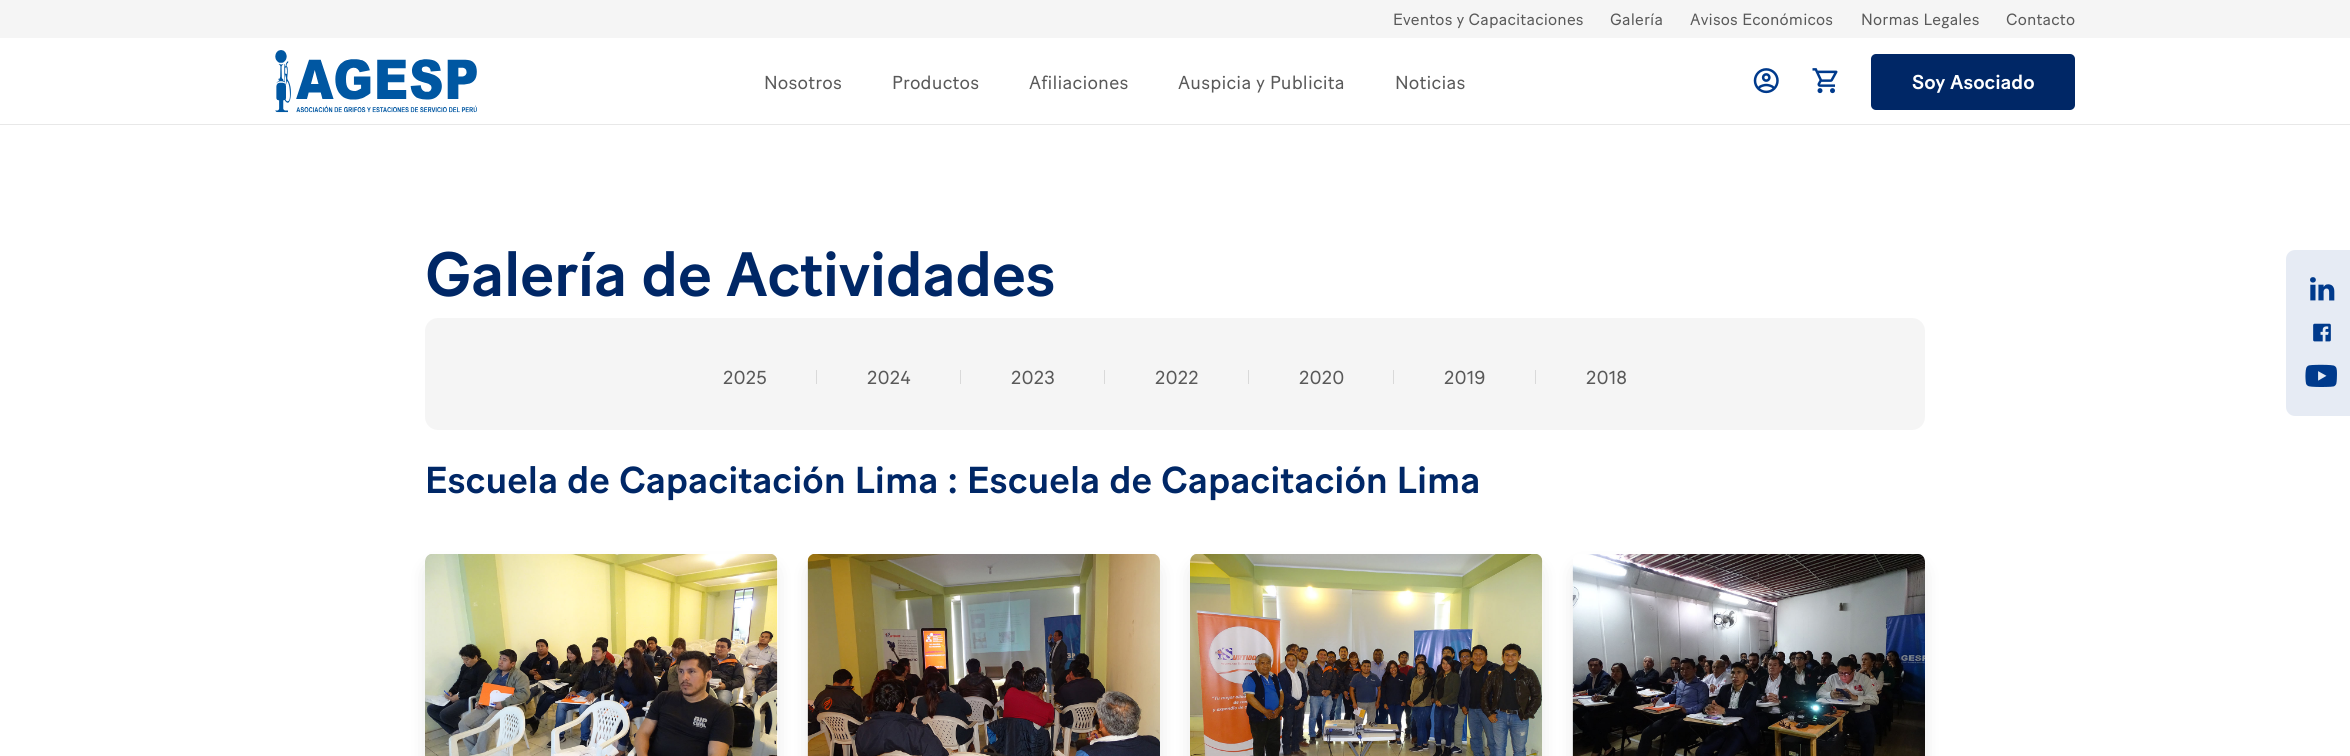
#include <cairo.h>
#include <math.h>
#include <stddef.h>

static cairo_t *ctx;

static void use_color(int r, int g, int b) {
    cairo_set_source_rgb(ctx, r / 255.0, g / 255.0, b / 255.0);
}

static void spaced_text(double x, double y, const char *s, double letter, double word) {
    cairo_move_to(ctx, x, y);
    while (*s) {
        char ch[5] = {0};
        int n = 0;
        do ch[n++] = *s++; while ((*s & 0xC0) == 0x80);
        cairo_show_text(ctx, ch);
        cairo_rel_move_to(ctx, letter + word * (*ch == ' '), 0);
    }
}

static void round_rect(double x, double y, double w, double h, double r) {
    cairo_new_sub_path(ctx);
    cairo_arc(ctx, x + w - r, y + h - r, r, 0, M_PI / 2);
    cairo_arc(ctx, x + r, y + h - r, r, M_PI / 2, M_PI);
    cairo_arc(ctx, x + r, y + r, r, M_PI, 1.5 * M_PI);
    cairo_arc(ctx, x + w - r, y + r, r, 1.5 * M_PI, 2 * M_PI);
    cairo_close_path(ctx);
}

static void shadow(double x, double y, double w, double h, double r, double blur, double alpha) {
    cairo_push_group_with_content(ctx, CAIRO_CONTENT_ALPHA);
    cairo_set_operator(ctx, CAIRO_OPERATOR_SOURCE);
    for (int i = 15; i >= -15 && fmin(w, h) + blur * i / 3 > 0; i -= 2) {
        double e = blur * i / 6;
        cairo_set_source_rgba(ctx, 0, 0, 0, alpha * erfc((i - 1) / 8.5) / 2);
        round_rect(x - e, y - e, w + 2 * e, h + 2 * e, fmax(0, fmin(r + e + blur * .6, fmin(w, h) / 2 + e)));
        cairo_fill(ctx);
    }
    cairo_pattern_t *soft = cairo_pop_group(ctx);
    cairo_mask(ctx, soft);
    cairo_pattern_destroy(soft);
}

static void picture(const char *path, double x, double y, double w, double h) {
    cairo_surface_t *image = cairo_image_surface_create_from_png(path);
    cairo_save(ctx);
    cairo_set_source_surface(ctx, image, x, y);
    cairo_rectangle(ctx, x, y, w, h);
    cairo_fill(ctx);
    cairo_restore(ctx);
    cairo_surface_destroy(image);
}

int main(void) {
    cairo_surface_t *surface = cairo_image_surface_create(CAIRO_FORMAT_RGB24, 2350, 756);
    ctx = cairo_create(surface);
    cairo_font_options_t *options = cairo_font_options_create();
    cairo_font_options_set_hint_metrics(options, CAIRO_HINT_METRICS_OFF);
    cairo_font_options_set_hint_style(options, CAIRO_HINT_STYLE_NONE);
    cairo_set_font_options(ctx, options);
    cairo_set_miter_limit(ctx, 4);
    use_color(255, 255, 255);
    cairo_paint(ctx);
    use_color(232, 232, 232);
    cairo_rectangle(ctx, 0, 124, 2350, 1);
    cairo_fill(ctx);
    use_color(245, 245, 245);
    cairo_rectangle(ctx, 0, 0, 2350, 38);
    cairo_fill(ctx);
    cairo_select_font_face(ctx, "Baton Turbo", CAIRO_FONT_SLANT_NORMAL, CAIRO_FONT_WEIGHT_NORMAL);
    cairo_set_font_size(ctx, 16.25);
    use_color(89, 89, 89);
    spaced_text(1393, 25, "Eventos y Capacitaciones", 0.2, 0);
    spaced_text(1610, 25, "Galería", 0.2, 0);
    spaced_text(1690, 25, "Avisos Económicos", 0.2, 0);
    spaced_text(1861, 25, "Normas Legales", 0.2, 0);
    spaced_text(2006, 25, "Contacto", 0.2, 0);
    picture("img1.png", 275, 50, 202, 63);
    cairo_set_font_size(ctx, 18.75);
    spaced_text(764, 89, "Nosotros", 0.2, 0);
    spaced_text(892, 89, "Productos", 0.2, 0);
    spaced_text(1029, 89, "Afiliaciones", 0.2, 0);
    spaced_text(1178, 89, "Auspicia y Publicita", 0.2, 0);
    spaced_text(1395, 89, "Noticias", 0.2, 0);
    picture("img2.png", 1753, 68, 26, 26);
    picture("img3.png", 1812, 68, 26, 26);
    use_color(0, 39, 102);
    round_rect(1871, 54, 204, 56, 5);
    cairo_fill(ctx);
    cairo_select_font_face(ctx, "Baton Turbo Medium", CAIRO_FONT_SLANT_NORMAL, CAIRO_FONT_WEIGHT_NORMAL);
    cairo_set_font_size(ctx, 20);
    use_color(255, 255, 255);
    cairo_move_to(ctx, 1912, 89);
    cairo_show_text(ctx, "Soy Asociado");
    cairo_set_font_size(ctx, 62.5);
    use_color(0, 39, 102);
    spaced_text(425, 296, "Galería de Actividades", -0.6, 0);
    use_color(245, 245, 245);
    round_rect(425, 318, 1500, 112, 13);
    cairo_fill(ctx);
    cairo_select_font_face(ctx, "Baton Turbo", CAIRO_FONT_SLANT_NORMAL, CAIRO_FONT_WEIGHT_NORMAL);
    cairo_set_font_size(ctx, 18.75);
    use_color(89, 89, 89);
    spaced_text(723, 384, "2025", 0.2, 0);
    use_color(217, 217, 217);
    cairo_rectangle(ctx, 816, 370, 1, 14);
    cairo_fill(ctx);
    use_color(89, 89, 89);
    spaced_text(867, 384, "2024", 0.2, 0);
    use_color(217, 217, 217);
    cairo_rectangle(ctx, 960, 370, 1, 14);
    cairo_fill(ctx);
    use_color(89, 89, 89);
    spaced_text(1011, 384, "2023", 0.2, 0);
    use_color(217, 217, 217);
    cairo_rectangle(ctx, 1104, 370, 1, 14);
    cairo_fill(ctx);
    use_color(89, 89, 89);
    spaced_text(1155, 384, "2022", 0.2, 0);
    use_color(217, 217, 217);
    cairo_rectangle(ctx, 1248, 370, 1, 14);
    cairo_fill(ctx);
    use_color(89, 89, 89);
    spaced_text(1299, 384, "2020", 0.2, 0);
    use_color(217, 217, 217);
    cairo_rectangle(ctx, 1393, 370, 1, 14);
    cairo_fill(ctx);
    use_color(89, 89, 89);
    spaced_text(1444, 384, "2019", 0.2, 0);
    use_color(217, 217, 217);
    cairo_rectangle(ctx, 1535, 370, 1, 14);
    cairo_fill(ctx);
    use_color(89, 89, 89);
    spaced_text(1586, 384, "2018", 0.2, 0);
    cairo_select_font_face(ctx, "Baton Turbo Medium", CAIRO_FONT_SLANT_NORMAL, CAIRO_FONT_WEIGHT_NORMAL);
    cairo_set_font_size(ctx, 37.5);
    use_color(0, 39, 102);
    cairo_move_to(ctx, 425, 493);
    cairo_show_text(ctx, "Escuela de Capacitación Lima : Escuela de Capacitación Lima");
    use_color(0, 0, 0);
    shadow(431, 571, 340, 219, 1, 11, 0.15);
    use_color(255, 255, 255);
    round_rect(425, 554, 353, 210, 8);
    cairo_fill(ctx);
    picture("img4.png", 425, 554, 353, 202);
    use_color(0, 0, 0);
    shadow(814, 571, 340, 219, 1, 11, 0.15);
    picture("img5.png", 807, 554, 353, 202);
    shadow(1196, 571, 340, 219, 1, 11, 0.15);
    use_color(255, 255, 255);
    round_rect(1190, 554, 353, 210, 8);
    cairo_fill(ctx);
    picture("img6.png", 1190, 554, 353, 202);
    use_color(0, 0, 0);
    shadow(1579, 571, 340, 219, 1, 11, 0.15);
    picture("img7.png", 1572, 554, 353, 202);
    use_color(230, 235, 244);
    round_rect(2286, 250, 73, 166, 9);
    cairo_fill(ctx);
    picture("img8.png", 2310, 277, 25, 24);
    picture("img9.png", 2313, 323, 18, 19);
    picture("img10.png", 2305, 364, 32, 23);
    cairo_surface_write_to_png(surface, "result.png");
    cairo_font_options_destroy(options);
    cairo_destroy(ctx);
    cairo_surface_destroy(surface);
    return 0;
}
